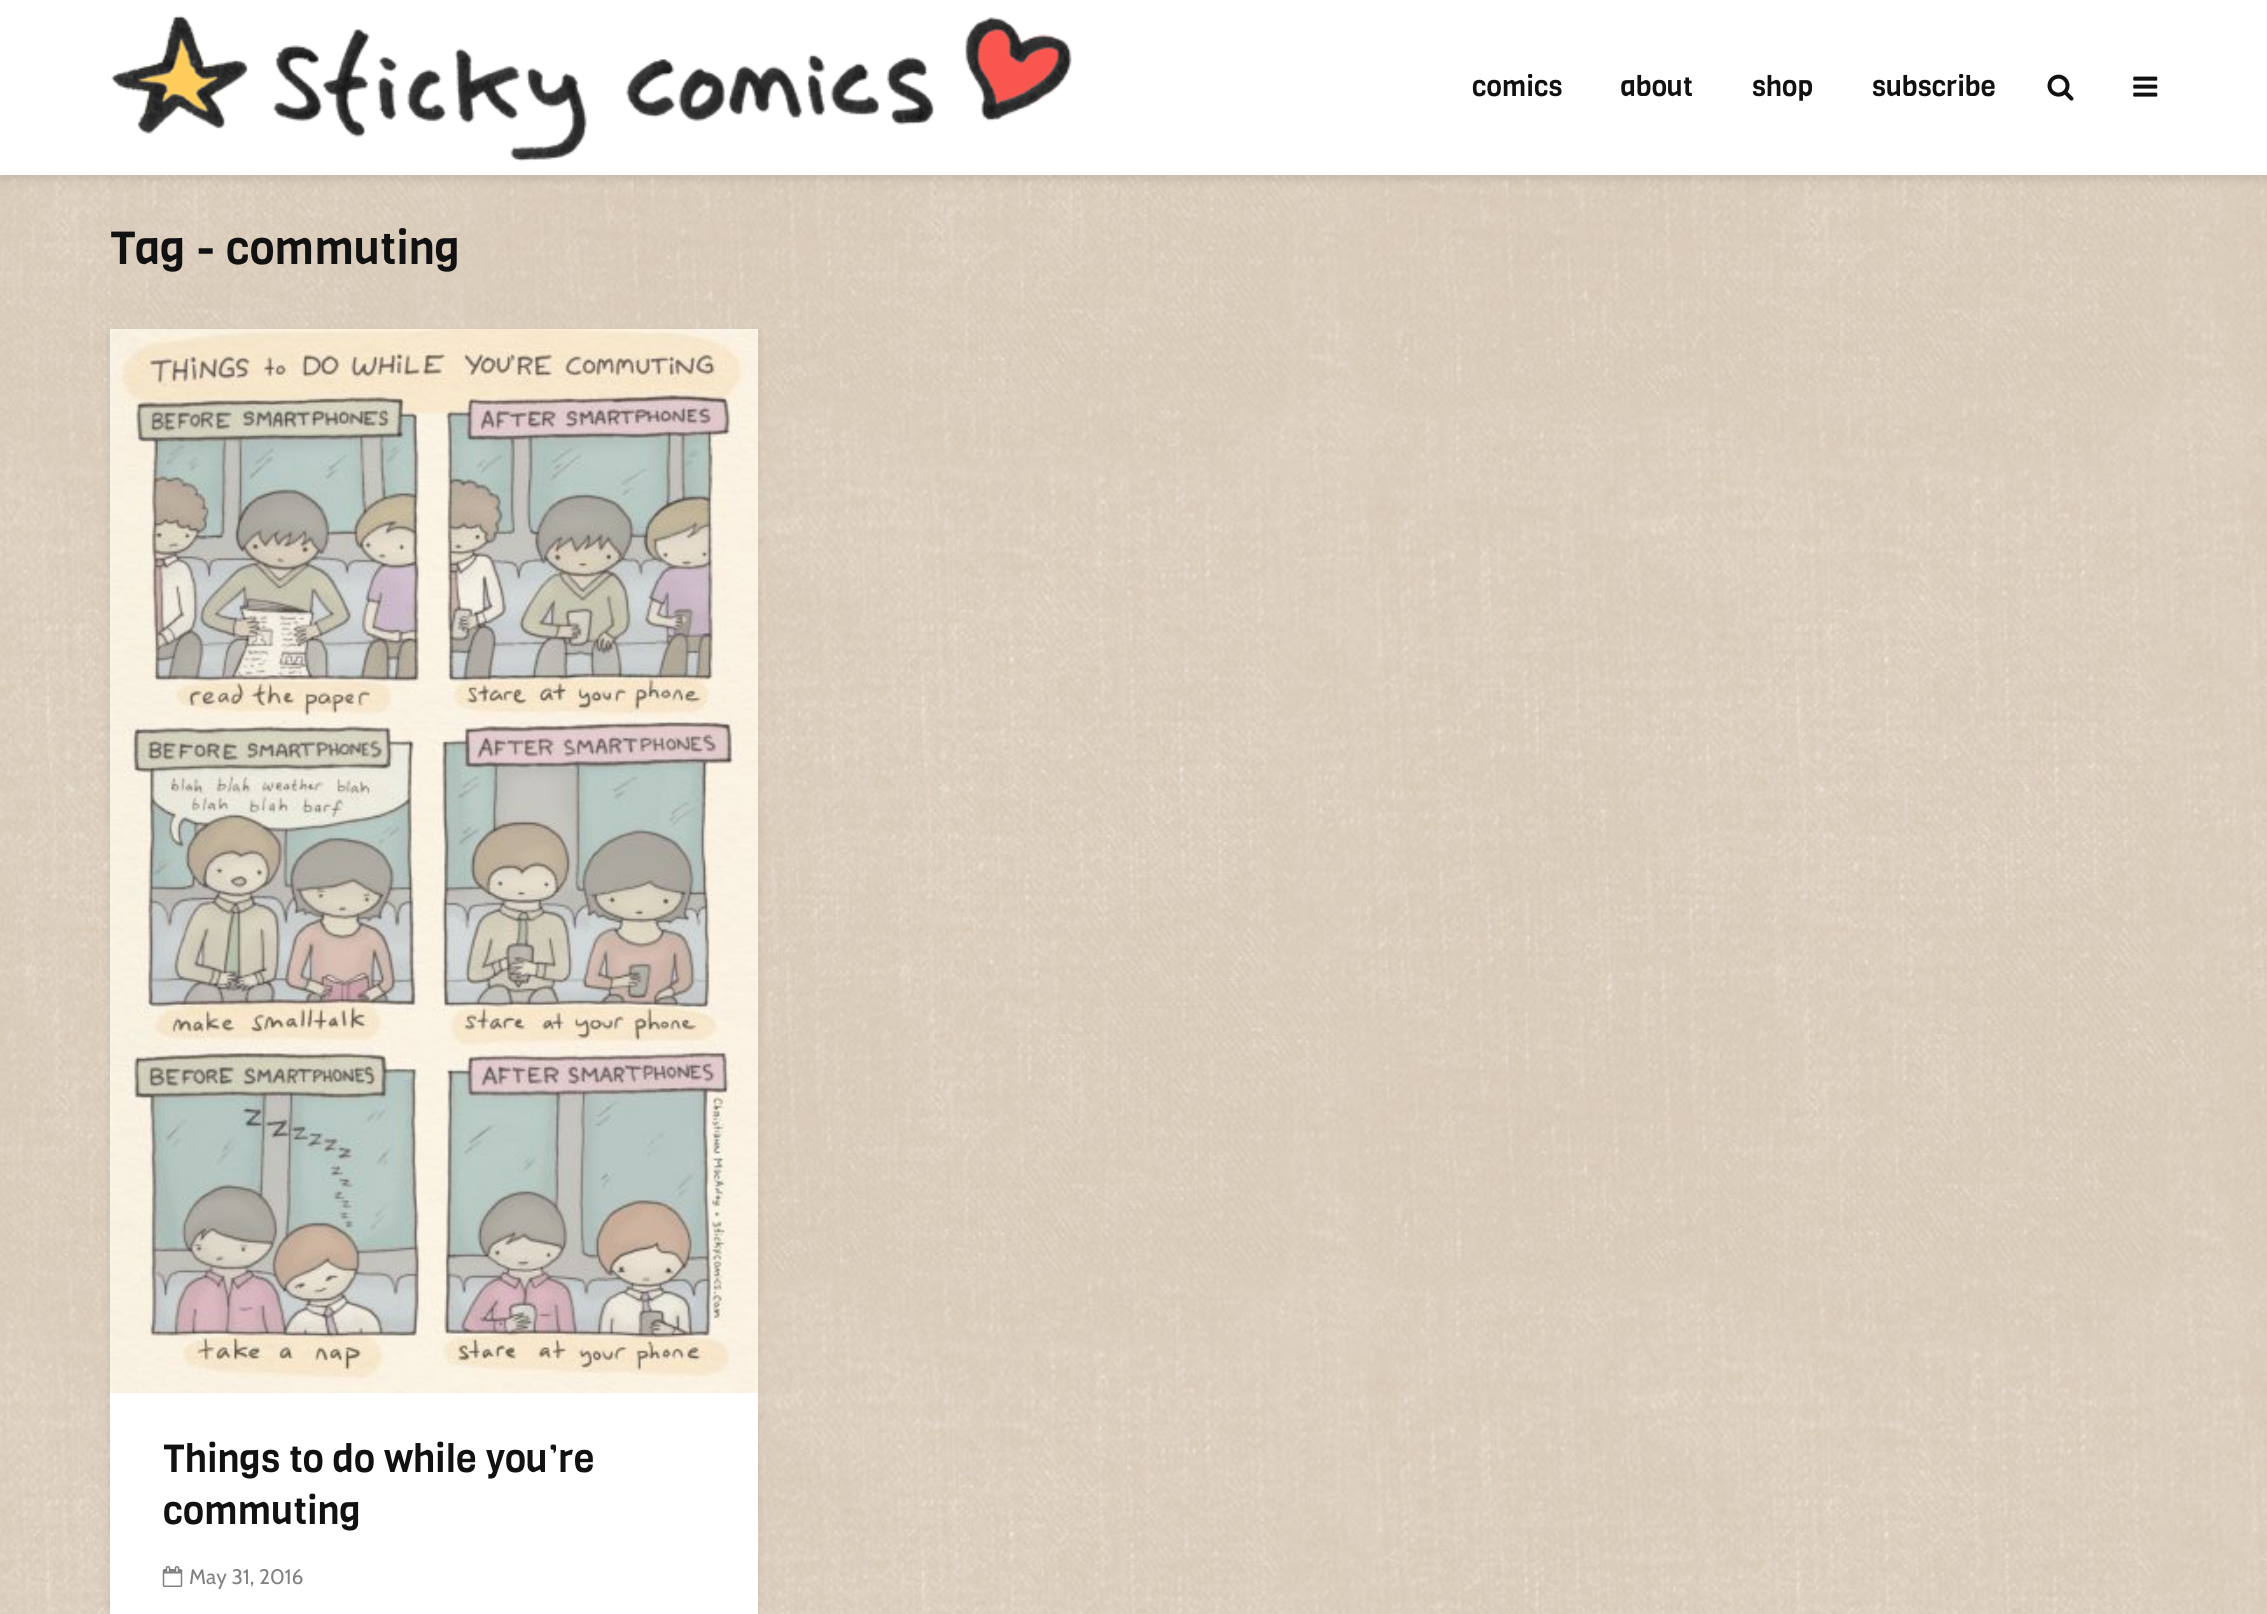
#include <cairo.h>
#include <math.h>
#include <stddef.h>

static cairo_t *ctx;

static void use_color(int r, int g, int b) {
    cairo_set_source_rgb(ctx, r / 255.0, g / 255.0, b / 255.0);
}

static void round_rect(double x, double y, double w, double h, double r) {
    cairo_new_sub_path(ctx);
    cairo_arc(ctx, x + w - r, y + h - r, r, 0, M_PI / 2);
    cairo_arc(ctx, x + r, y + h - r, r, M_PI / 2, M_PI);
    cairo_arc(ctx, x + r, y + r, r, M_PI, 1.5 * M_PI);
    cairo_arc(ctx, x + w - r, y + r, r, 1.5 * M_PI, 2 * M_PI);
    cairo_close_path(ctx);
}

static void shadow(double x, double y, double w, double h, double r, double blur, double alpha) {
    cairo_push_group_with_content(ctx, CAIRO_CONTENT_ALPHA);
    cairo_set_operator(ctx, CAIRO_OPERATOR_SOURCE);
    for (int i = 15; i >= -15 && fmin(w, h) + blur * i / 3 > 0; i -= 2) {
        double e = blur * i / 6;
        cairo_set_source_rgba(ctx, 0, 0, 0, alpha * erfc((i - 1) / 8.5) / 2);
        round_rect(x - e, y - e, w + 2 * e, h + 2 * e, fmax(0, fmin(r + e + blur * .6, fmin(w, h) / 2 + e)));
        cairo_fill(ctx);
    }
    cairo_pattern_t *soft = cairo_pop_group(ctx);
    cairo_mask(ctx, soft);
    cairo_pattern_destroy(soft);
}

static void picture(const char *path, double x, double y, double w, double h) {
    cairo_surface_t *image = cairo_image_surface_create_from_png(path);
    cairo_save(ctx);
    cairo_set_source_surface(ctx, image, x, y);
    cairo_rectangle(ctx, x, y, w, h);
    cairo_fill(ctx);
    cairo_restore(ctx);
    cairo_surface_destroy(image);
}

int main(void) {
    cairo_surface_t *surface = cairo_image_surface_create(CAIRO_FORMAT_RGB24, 2267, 1614);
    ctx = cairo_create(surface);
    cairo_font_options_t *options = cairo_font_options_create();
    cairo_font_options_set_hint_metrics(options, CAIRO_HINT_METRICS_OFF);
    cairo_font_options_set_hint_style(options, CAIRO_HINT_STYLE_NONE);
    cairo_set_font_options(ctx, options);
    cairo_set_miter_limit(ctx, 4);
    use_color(255, 255, 255);
    cairo_paint(ctx);
    picture("img1.png", 0, 175, 2267, 1439);
    use_color(0, 1, 1);
    shadow(0, 5, 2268, 175, 0, 4.5, 0.1);
    use_color(255, 255, 255);
    cairo_rectangle(ctx, 0, 0, 2267, 175);
    cairo_fill(ctx);
    picture("img2.png", 111, 15, 961, 147);
    cairo_select_font_face(ctx, "Viga", CAIRO_FONT_SLANT_NORMAL, CAIRO_FONT_WEIGHT_NORMAL);
    cairo_set_font_size(ctx, 28);
    use_color(17, 17, 17);
    cairo_move_to(ctx, 1472, 96);
    cairo_show_text(ctx, "comics");
    cairo_move_to(ctx, 1621, 96);
    cairo_show_text(ctx, "about");
    cairo_move_to(ctx, 1752, 96);
    cairo_show_text(ctx, "shop");
    cairo_move_to(ctx, 1872, 96);
    cairo_show_text(ctx, "subscribe");
    picture("img3.png", 2047, 74, 27, 27);
    picture("img4.png", 2133, 76, 25, 21);
    cairo_set_font_size(ctx, 45.5);
    cairo_move_to(ctx, 110, 264);
    cairo_show_text(ctx, "Tag - commuting");
    use_color(0, 1, 1);
    shadow(110, 334, 648, 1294, 0, 4.5, 0.1);
    use_color(255, 255, 255);
    cairo_rectangle(ctx, 110, 329, 648, 1285);
    cairo_fill(ctx);
    picture("img5.png", 110, 329, 648, 1064);
    cairo_set_font_size(ctx, 38.5);
    use_color(17, 17, 17);
    cairo_move_to(ctx, 163, 1472);
    cairo_show_text(ctx, "Things to do while you’re");
    cairo_move_to(ctx, 163, 1524);
    cairo_show_text(ctx, "commuting");
    picture("img6.png", 162, 1566, 21, 21);
    cairo_select_font_face(ctx, "Cabin", CAIRO_FONT_SLANT_NORMAL, CAIRO_FONT_WEIGHT_NORMAL);
    cairo_set_font_size(ctx, 21);
    use_color(129, 129, 129);
    cairo_move_to(ctx, 189, 1584);
    cairo_show_text(ctx, "May 31, 2016");
    cairo_surface_write_to_png(surface, "result.png");
    cairo_font_options_destroy(options);
    cairo_destroy(ctx);
    cairo_surface_destroy(surface);
    return 0;
}
